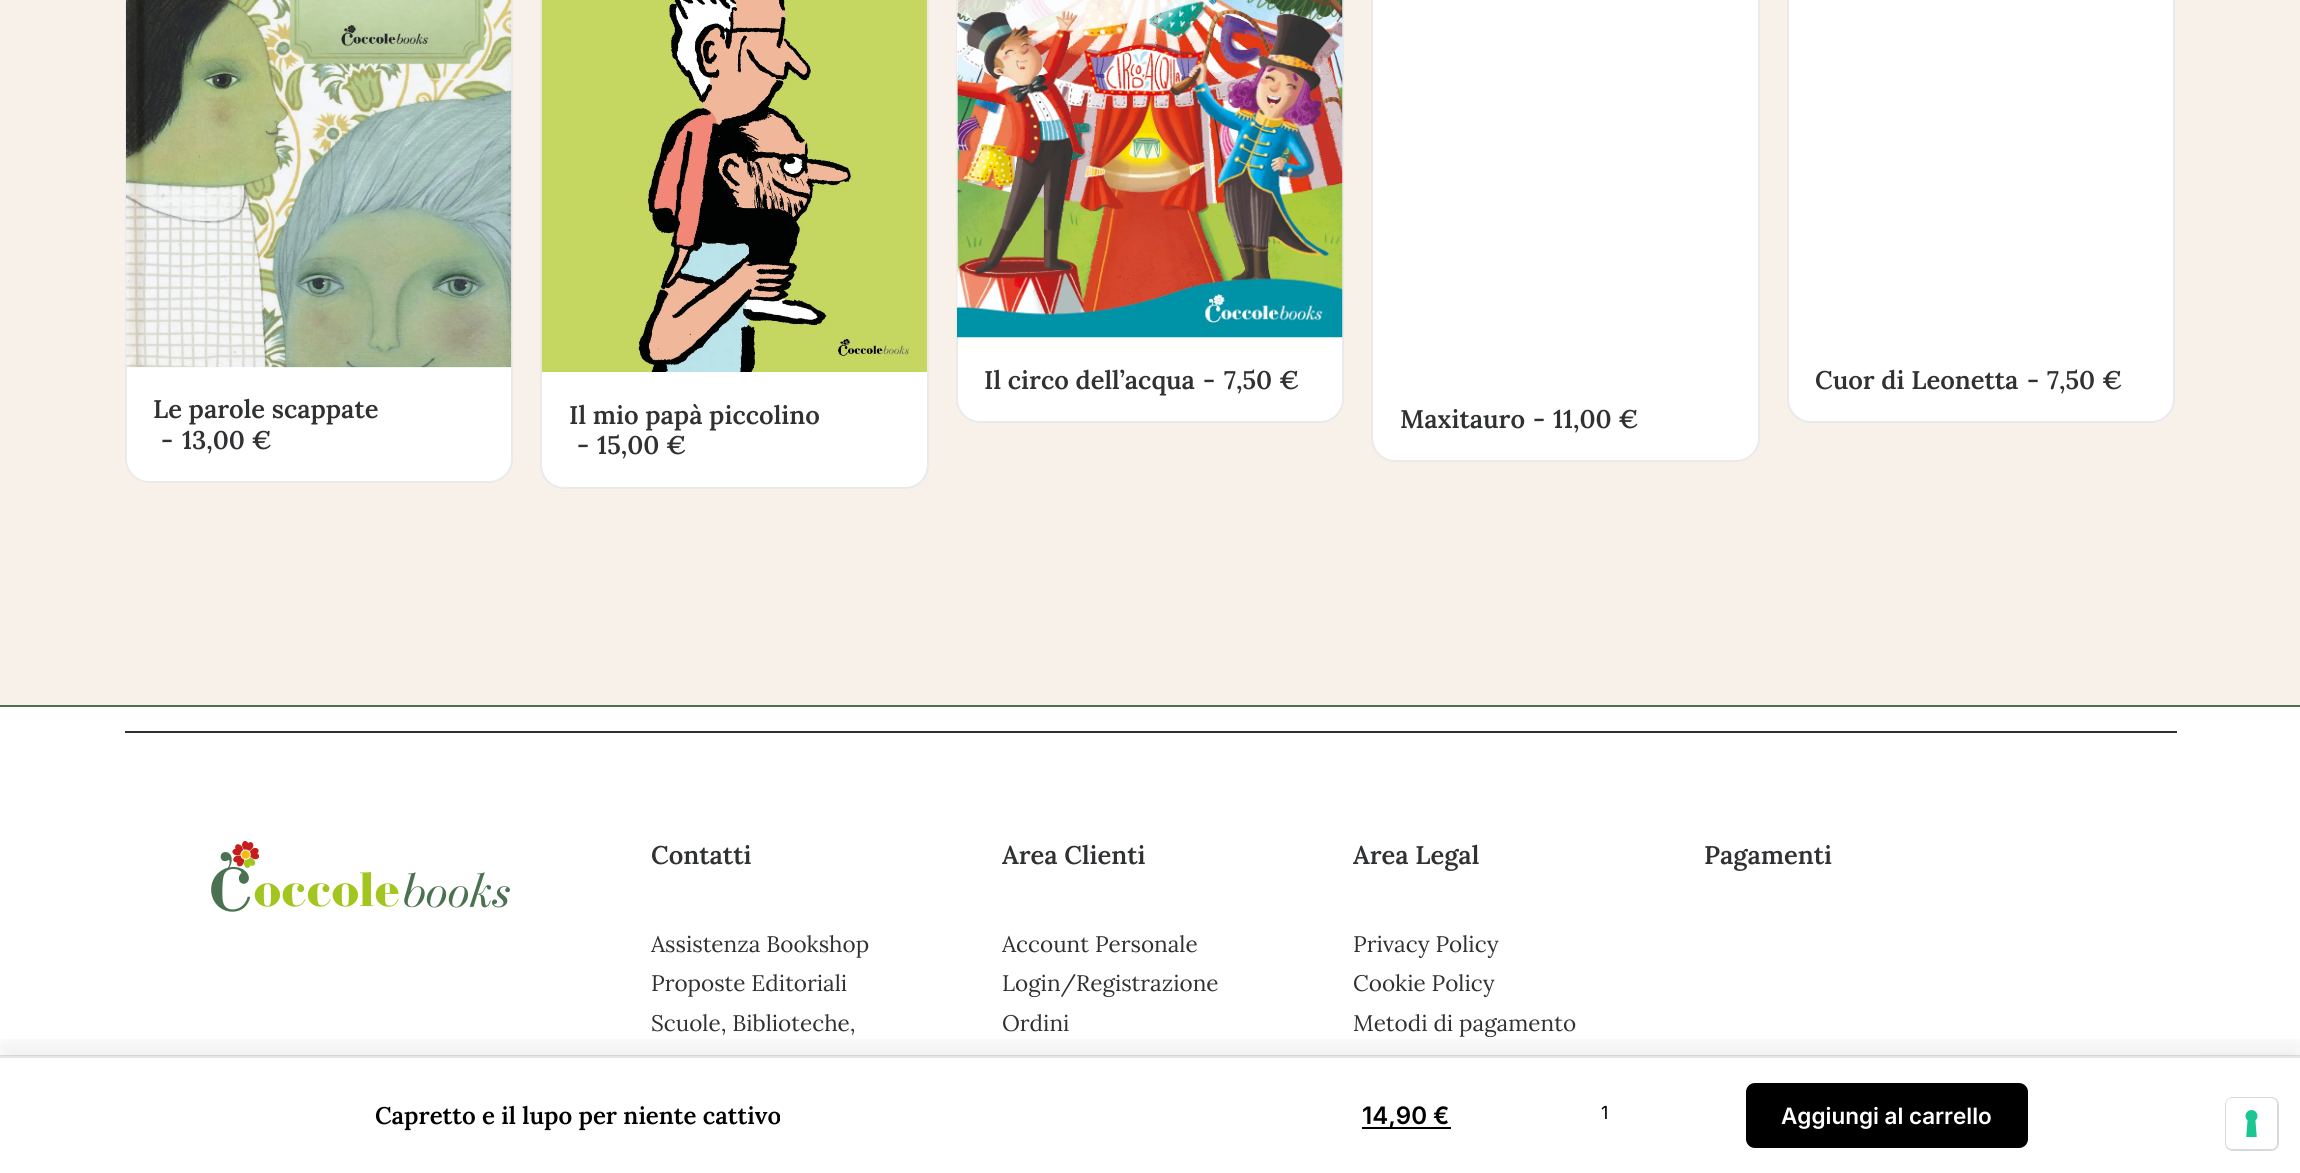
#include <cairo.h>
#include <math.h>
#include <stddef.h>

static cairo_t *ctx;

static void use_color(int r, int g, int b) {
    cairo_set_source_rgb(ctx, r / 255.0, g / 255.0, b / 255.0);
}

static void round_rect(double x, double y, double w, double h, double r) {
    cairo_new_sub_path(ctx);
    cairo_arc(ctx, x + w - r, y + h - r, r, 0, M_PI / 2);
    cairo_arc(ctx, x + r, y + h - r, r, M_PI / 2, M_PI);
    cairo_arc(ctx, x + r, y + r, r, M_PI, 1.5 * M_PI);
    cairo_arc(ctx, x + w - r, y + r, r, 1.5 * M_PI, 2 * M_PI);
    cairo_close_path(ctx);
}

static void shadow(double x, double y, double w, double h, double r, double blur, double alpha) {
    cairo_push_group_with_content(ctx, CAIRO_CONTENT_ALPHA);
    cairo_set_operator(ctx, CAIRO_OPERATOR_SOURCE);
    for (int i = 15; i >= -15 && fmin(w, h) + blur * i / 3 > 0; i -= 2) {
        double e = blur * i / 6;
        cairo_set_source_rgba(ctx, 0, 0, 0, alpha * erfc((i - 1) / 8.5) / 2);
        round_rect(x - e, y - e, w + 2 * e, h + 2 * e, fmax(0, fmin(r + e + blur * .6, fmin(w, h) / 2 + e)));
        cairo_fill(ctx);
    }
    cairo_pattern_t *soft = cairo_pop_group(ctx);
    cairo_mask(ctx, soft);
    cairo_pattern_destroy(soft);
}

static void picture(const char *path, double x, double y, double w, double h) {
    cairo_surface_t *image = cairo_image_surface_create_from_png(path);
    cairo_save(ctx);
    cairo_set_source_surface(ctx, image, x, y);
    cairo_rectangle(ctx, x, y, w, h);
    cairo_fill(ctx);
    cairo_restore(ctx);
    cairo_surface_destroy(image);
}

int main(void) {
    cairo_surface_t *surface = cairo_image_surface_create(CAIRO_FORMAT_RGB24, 2300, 1173);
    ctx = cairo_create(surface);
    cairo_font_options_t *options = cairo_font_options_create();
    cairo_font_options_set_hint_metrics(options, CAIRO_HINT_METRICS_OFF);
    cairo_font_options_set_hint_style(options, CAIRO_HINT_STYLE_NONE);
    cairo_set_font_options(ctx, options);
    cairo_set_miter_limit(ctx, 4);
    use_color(247, 241, 233);
    cairo_paint(ctx);
    use_color(74, 114, 81);
    cairo_rectangle(ctx, 0, 705, 2300, 2);
    cairo_fill(ctx);
    use_color(255, 255, 255);
    round_rect(957, -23, 386, 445, 23);
    cairo_fill(ctx);
    round_rect(957, -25, 386, 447, 23);
    use_color(234, 234, 234);
    cairo_stroke(ctx);
    picture("img1.png", 957, 0, 386, 338);
    cairo_select_font_face(ctx, "Lora SemiBold", CAIRO_FONT_SLANT_NORMAL, CAIRO_FONT_WEIGHT_NORMAL);
    cairo_set_font_size(ctx, 25.5);
    use_color(48, 49, 51);
    cairo_move_to(ctx, 984, 389);
    cairo_show_text(ctx, "Il circo dell’acqua");
    cairo_move_to(ctx, 1203, 389);
    cairo_show_text(ctx, "-");
    cairo_move_to(ctx, 1224, 389);
    cairo_show_text(ctx, "7,50 €");
    use_color(255, 255, 255);
    round_rect(1788, -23, 386, 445, 23);
    cairo_fill(ctx);
    round_rect(1788, -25, 386, 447, 23);
    use_color(234, 234, 234);
    cairo_stroke(ctx);
    use_color(48, 49, 51);
    cairo_move_to(ctx, 1815, 389);
    cairo_show_text(ctx, "Cuor di Leonetta");
    cairo_move_to(ctx, 2027, 389);
    cairo_show_text(ctx, "-");
    cairo_move_to(ctx, 2047, 389);
    cairo_show_text(ctx, "7,50 €");
    use_color(255, 255, 255);
    round_rect(126, -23, 386, 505, 23);
    cairo_fill(ctx);
    round_rect(126, -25, 386, 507, 23);
    use_color(234, 234, 234);
    cairo_stroke(ctx);
    picture("img2.png", 126, 0, 386, 368);
    use_color(48, 49, 51);
    cairo_move_to(ctx, 153, 418);
    cairo_show_text(ctx, "Le parole scappate");
    cairo_move_to(ctx, 161, 449);
    cairo_show_text(ctx, "-");
    cairo_move_to(ctx, 182, 449);
    cairo_show_text(ctx, "13,00 €");
    use_color(255, 255, 255);
    round_rect(542, -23, 385, 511, 23);
    cairo_fill(ctx);
    round_rect(541, -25, 387, 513, 23);
    use_color(234, 234, 234);
    cairo_stroke(ctx);
    picture("img3.png", 541, 0, 386, 372);
    use_color(48, 49, 51);
    cairo_move_to(ctx, 569, 424);
    cairo_show_text(ctx, "Il mio papà piccolino");
    cairo_move_to(ctx, 577, 454);
    cairo_show_text(ctx, "-");
    cairo_move_to(ctx, 597, 454);
    cairo_show_text(ctx, "15,00 €");
    use_color(255, 255, 255);
    round_rect(1373, -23, 385, 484, 23);
    cairo_fill(ctx);
    round_rect(1372, -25, 387, 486, 23);
    use_color(234, 234, 234);
    cairo_stroke(ctx);
    use_color(48, 49, 51);
    cairo_move_to(ctx, 1400, 428);
    cairo_show_text(ctx, "Maxitauro");
    cairo_move_to(ctx, 1533, 428);
    cairo_show_text(ctx, "-");
    cairo_move_to(ctx, 1553, 428);
    cairo_show_text(ctx, "11,00 €");
    use_color(255, 255, 255);
    cairo_rectangle(ctx, 0, 707, 2300, 348);
    cairo_fill(ctx);
    use_color(48, 49, 51);
    cairo_rectangle(ctx, 125, 731, 2052, 2);
    cairo_fill(ctx);
    picture("img4.png", 211, 841, 299, 71);
    cairo_move_to(ctx, 651, 864);
    cairo_show_text(ctx, "Contatti");
    cairo_select_font_face(ctx, "Lora", CAIRO_FONT_SLANT_NORMAL, CAIRO_FONT_WEIGHT_NORMAL);
    cairo_set_font_size(ctx, 22.5);
    cairo_move_to(ctx, 651, 952);
    cairo_show_text(ctx, "Assistenza Bookshop");
    cairo_move_to(ctx, 651, 991);
    cairo_show_text(ctx, "Proposte Editoriali");
    cairo_move_to(ctx, 651, 1031);
    cairo_show_text(ctx, "Scuole, Biblioteche,");
    cairo_select_font_face(ctx, "Lora SemiBold", CAIRO_FONT_SLANT_NORMAL, CAIRO_FONT_WEIGHT_NORMAL);
    cairo_set_font_size(ctx, 25.5);
    cairo_move_to(ctx, 1002, 864);
    cairo_show_text(ctx, "Area Clienti");
    cairo_select_font_face(ctx, "Lora", CAIRO_FONT_SLANT_NORMAL, CAIRO_FONT_WEIGHT_NORMAL);
    cairo_set_font_size(ctx, 22.5);
    cairo_move_to(ctx, 1002, 952);
    cairo_show_text(ctx, "Account Personale");
    cairo_move_to(ctx, 1002, 991);
    cairo_show_text(ctx, "Login/Registrazione");
    cairo_move_to(ctx, 1002, 1031);
    cairo_show_text(ctx, "Ordini");
    cairo_select_font_face(ctx, "Lora SemiBold", CAIRO_FONT_SLANT_NORMAL, CAIRO_FONT_WEIGHT_NORMAL);
    cairo_set_font_size(ctx, 25.5);
    cairo_move_to(ctx, 1353, 864);
    cairo_show_text(ctx, "Area Legal");
    cairo_select_font_face(ctx, "Lora", CAIRO_FONT_SLANT_NORMAL, CAIRO_FONT_WEIGHT_NORMAL);
    cairo_set_font_size(ctx, 22.5);
    cairo_move_to(ctx, 1353, 952);
    cairo_show_text(ctx, "Privacy Policy");
    cairo_move_to(ctx, 1353, 991);
    cairo_show_text(ctx, "Cookie Policy");
    cairo_move_to(ctx, 1353, 1031);
    cairo_show_text(ctx, "Metodi di pagamento");
    cairo_select_font_face(ctx, "Lora SemiBold", CAIRO_FONT_SLANT_NORMAL, CAIRO_FONT_WEIGHT_NORMAL);
    cairo_set_font_size(ctx, 25.5);
    cairo_move_to(ctx, 1704, 864);
    cairo_show_text(ctx, "Pagamenti");
    use_color(128, 128, 128);
    shadow(2196, 1062, 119, 90, 3, 4, 1);
    use_color(255, 255, 255);
    cairo_rectangle(ctx, 0, 1058, 2300, 115);
    cairo_fill(ctx);
    use_color(224, 224, 224);
    cairo_rectangle(ctx, 0, 1055, 2300, 1);
    cairo_fill(ctx);
    cairo_save(ctx);
    cairo_rectangle(ctx, 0, 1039, 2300, 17);
    cairo_clip(ctx);
    use_color(0, 0, 0);
    shadow(0, 1041, 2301, 117, 0, 7.5, 0.05);
    cairo_restore(ctx);
    use_color(229, 229, 229);
    cairo_rectangle(ctx, 0, 1056, 2300, 2);
    cairo_fill(ctx);
    cairo_set_font_size(ctx, 24);
    use_color(0, 0, 0);
    cairo_move_to(ctx, 375, 1124);
    cairo_show_text(ctx, "Capretto e il lupo per niente cattivo");
    cairo_rectangle(ctx, 1362, 1127, 89, 2);
    cairo_fill(ctx);
    cairo_select_font_face(ctx, "Inter SemiBold", CAIRO_FONT_SLANT_NORMAL, CAIRO_FONT_WEIGHT_NORMAL);
    cairo_move_to(ctx, 1362, 1124);
    cairo_show_text(ctx, "14,90 €");
    cairo_select_font_face(ctx, "Inter", CAIRO_FONT_SLANT_NORMAL, CAIRO_FONT_WEIGHT_NORMAL);
    cairo_set_font_size(ctx, 18);
    cairo_move_to(ctx, 1601, 1119);
    cairo_show_text(ctx, "1");
    round_rect(1746, 1083, 282, 65, 9);
    cairo_fill(ctx);
    cairo_select_font_face(ctx, "Inter SemiBold", CAIRO_FONT_SLANT_NORMAL, CAIRO_FONT_WEIGHT_NORMAL);
    cairo_set_font_size(ctx, 22.5);
    use_color(255, 255, 255);
    cairo_move_to(ctx, 1781, 1124);
    cairo_show_text(ctx, "Aggiungi al carrello");
    round_rect(2226, 1098, 52, 52, 7);
    use_color(217, 217, 217);
    cairo_stroke(ctx);
    use_color(255, 255, 255);
    round_rect(2226, 1098, 51, 51, 6);
    cairo_fill(ctx);
    picture("img5.png", 2245, 1110, 13, 27);
    cairo_surface_write_to_png(surface, "result.png");
    cairo_font_options_destroy(options);
    cairo_destroy(ctx);
    cairo_surface_destroy(surface);
    return 0;
}
